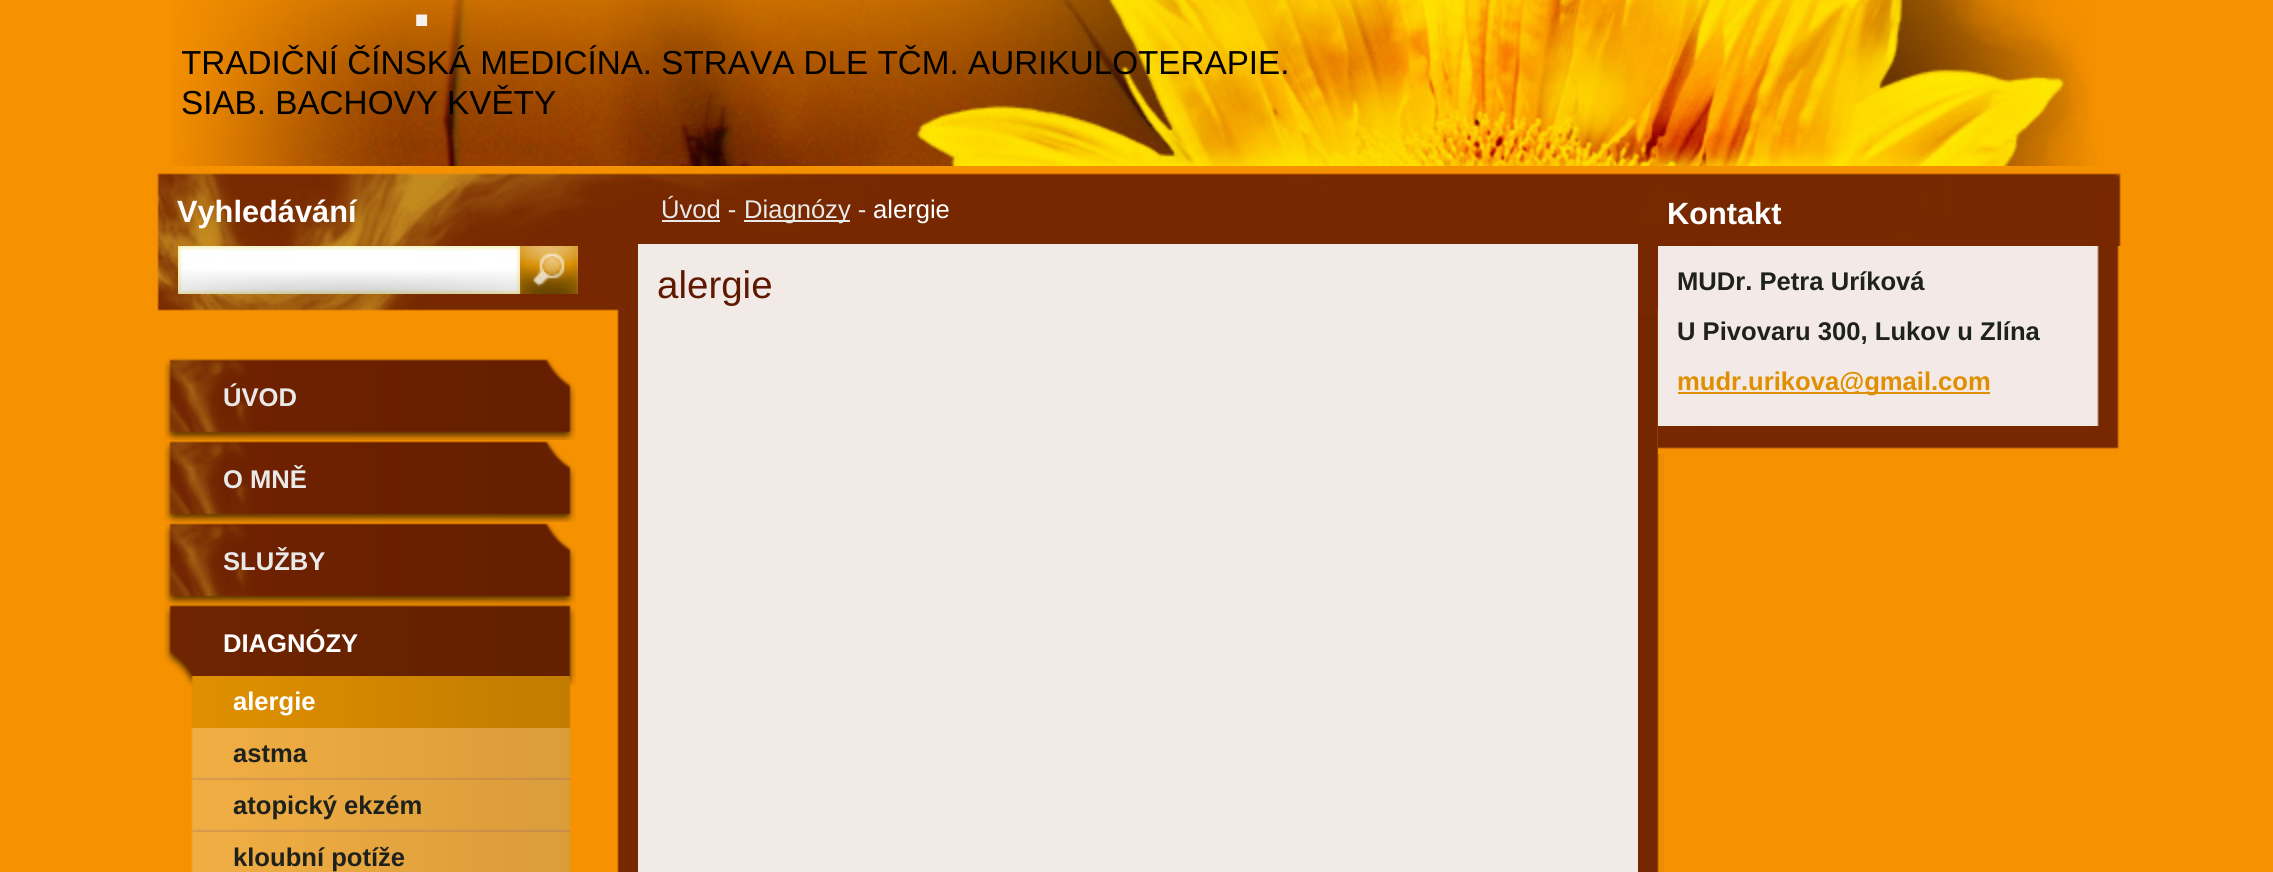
#include <cairo.h>
#include <math.h>
#include <stddef.h>

static cairo_t *ctx;

static void use_color(int r, int g, int b) {
    cairo_set_source_rgb(ctx, r / 255.0, g / 255.0, b / 255.0);
}

static void picture(const char *path, double x, double y, double w, double h) {
    cairo_surface_t *image = cairo_image_surface_create_from_png(path);
    cairo_save(ctx);
    cairo_set_source_surface(ctx, image, x, y);
    cairo_rectangle(ctx, x, y, w, h);
    cairo_fill(ctx);
    cairo_restore(ctx);
    cairo_surface_destroy(image);
}

int main(void) {
    cairo_surface_t *surface = cairo_image_surface_create(CAIRO_FORMAT_RGB24, 2273, 872);
    ctx = cairo_create(surface);
    cairo_font_options_t *options = cairo_font_options_create();
    cairo_font_options_set_hint_metrics(options, CAIRO_HINT_METRICS_OFF);
    cairo_font_options_set_hint_style(options, CAIRO_HINT_STYLE_NONE);
    cairo_set_font_options(ctx, options);
    cairo_set_miter_limit(ctx, 4);
    use_color(246, 145, 0);
    cairo_paint(ctx);
    picture("img1.png", 172, 0, 1925, 166);
    cairo_select_font_face(ctx, "Liberation Sans", CAIRO_FONT_SLANT_NORMAL, CAIRO_FONT_WEIGHT_BOLD);
    cairo_set_font_size(ctx, 77);
    use_color(243, 242, 239);
    cairo_move_to(ctx, 411, 26);
    cairo_show_text(ctx, ".");
    cairo_save(ctx);
    cairo_rectangle(ctx, 182, 44, 1200, 80);
    cairo_clip(ctx);
    cairo_select_font_face(ctx, "Liberation Sans", CAIRO_FONT_SLANT_NORMAL, CAIRO_FONT_WEIGHT_NORMAL);
    cairo_set_font_size(ctx, 33.25);
    use_color(0, 0, 0);
    cairo_move_to(ctx, 181, 74);
    cairo_show_text(ctx, "TRADIČNÍ ČÍNSKÁ MEDICÍNA. STRAVA DLE TČM. AURIKULOTERAPIE.");
    cairo_restore(ctx);
    cairo_select_font_face(ctx, "Liberation Sans", CAIRO_FONT_SLANT_NORMAL, CAIRO_FONT_WEIGHT_NORMAL);
    cairo_set_font_size(ctx, 33.25);
    use_color(0, 0, 0);
    cairo_move_to(ctx, 181, 114);
    cairo_show_text(ctx, "SIAB. BACHOVY KVĚTY");
    picture("img2.png", 152, 168, 1970, 148);
    cairo_select_font_face(ctx, "Liberation Sans", CAIRO_FONT_SLANT_NORMAL, CAIRO_FONT_WEIGHT_BOLD);
    cairo_set_font_size(ctx, 30.75);
    use_color(255, 255, 255);
    cairo_move_to(ctx, 177, 222);
    cairo_show_text(ctx, "Vyhledávání");
    picture("img3.png", 178, 246, 342, 48);
    picture("img4.png", 520, 246, 58, 48);
    picture("img5.png", 612, 316, 1052, 556);
    picture("img6.png", 612, 168, 1052, 148);
    cairo_select_font_face(ctx, "Liberation Sans", CAIRO_FONT_SLANT_NORMAL, CAIRO_FONT_WEIGHT_NORMAL);
    cairo_set_font_size(ctx, 25.6);
    use_color(233, 233, 233);
    cairo_move_to(ctx, 661, 218);
    cairo_show_text(ctx, "Úvod -");
    cairo_rectangle(ctx, 662, 220, 58, 2);
    cairo_fill(ctx);
    cairo_rectangle(ctx, 744, 220, 106, 2);
    cairo_fill(ctx);
    cairo_move_to(ctx, 744, 218);
    cairo_show_text(ctx, "Diagnózy -");
    use_color(255, 255, 255);
    cairo_move_to(ctx, 873, 218);
    cairo_show_text(ctx, "alergie");
    use_color(242, 234, 230);
    cairo_rectangle(ctx, 638, 244, 1000, 628);
    cairo_fill(ctx);
    cairo_set_font_size(ctx, 38.5);
    use_color(95, 25, 0);
    cairo_move_to(ctx, 657, 298);
    cairo_show_text(ctx, "alergie");
    cairo_select_font_face(ctx, "Liberation Sans", CAIRO_FONT_SLANT_NORMAL, CAIRO_FONT_WEIGHT_BOLD);
    cairo_set_font_size(ctx, 30.75);
    use_color(255, 255, 255);
    cairo_move_to(ctx, 1667, 224);
    cairo_show_text(ctx, "Kontakt");
    picture("img7.png", 1658, 246, 464, 180);
    cairo_set_font_size(ctx, 25.6);
    use_color(31, 34, 28);
    cairo_move_to(ctx, 1677, 290);
    cairo_show_text(ctx, "MUDr. Petra Uríková");
    cairo_move_to(ctx, 1677, 340);
    cairo_show_text(ctx, "U Pivovaru 300, Lukov u Zlína");
    use_color(223, 143, 0);
    cairo_rectangle(ctx, 1678, 392, 238, 2);
    cairo_fill(ctx);
    cairo_move_to(ctx, 1677, 390);
    cairo_show_text(ctx, "mudr.urikova@gmail.com");
    cairo_rectangle(ctx, 1916, 392, 74, 2);
    cairo_fill(ctx);
    picture("img8.png", 1658, 426, 463, 28);
    picture("img9.png", 164, 358, 412, 82);
    use_color(233, 233, 233);
    cairo_move_to(ctx, 223, 406);
    cairo_show_text(ctx, "ÚVOD");
    picture("img9.png", 164, 440, 412, 82);
    cairo_move_to(ctx, 223, 488);
    cairo_show_text(ctx, "O MNĚ");
    picture("img9.png", 164, 522, 412, 82);
    cairo_move_to(ctx, 223, 570);
    cairo_show_text(ctx, "SLUŽBY");
    picture("img10.png", 164, 604, 412, 82);
    use_color(255, 255, 255);
    cairo_move_to(ctx, 223, 652);
    cairo_show_text(ctx, "DIAGNÓZY");
    picture("img11.png", 191, 676, 380, 52);
    cairo_move_to(ctx, 233, 710);
    cairo_show_text(ctx, "alergie");
    picture("img12.png", 191, 728, 380, 52);
    use_color(31, 34, 28);
    cairo_move_to(ctx, 233, 762);
    cairo_show_text(ctx, "astma");
    picture("img12.png", 191, 780, 380, 52);
    cairo_move_to(ctx, 233, 814);
    cairo_show_text(ctx, "atopický ekzém");
    picture("img13.png", 191, 832, 380, 40);
    cairo_move_to(ctx, 233, 866);
    cairo_show_text(ctx, "kloubní potíže");
    cairo_surface_write_to_png(surface, "result.png");
    cairo_font_options_destroy(options);
    cairo_destroy(ctx);
    cairo_surface_destroy(surface);
    return 0;
}
